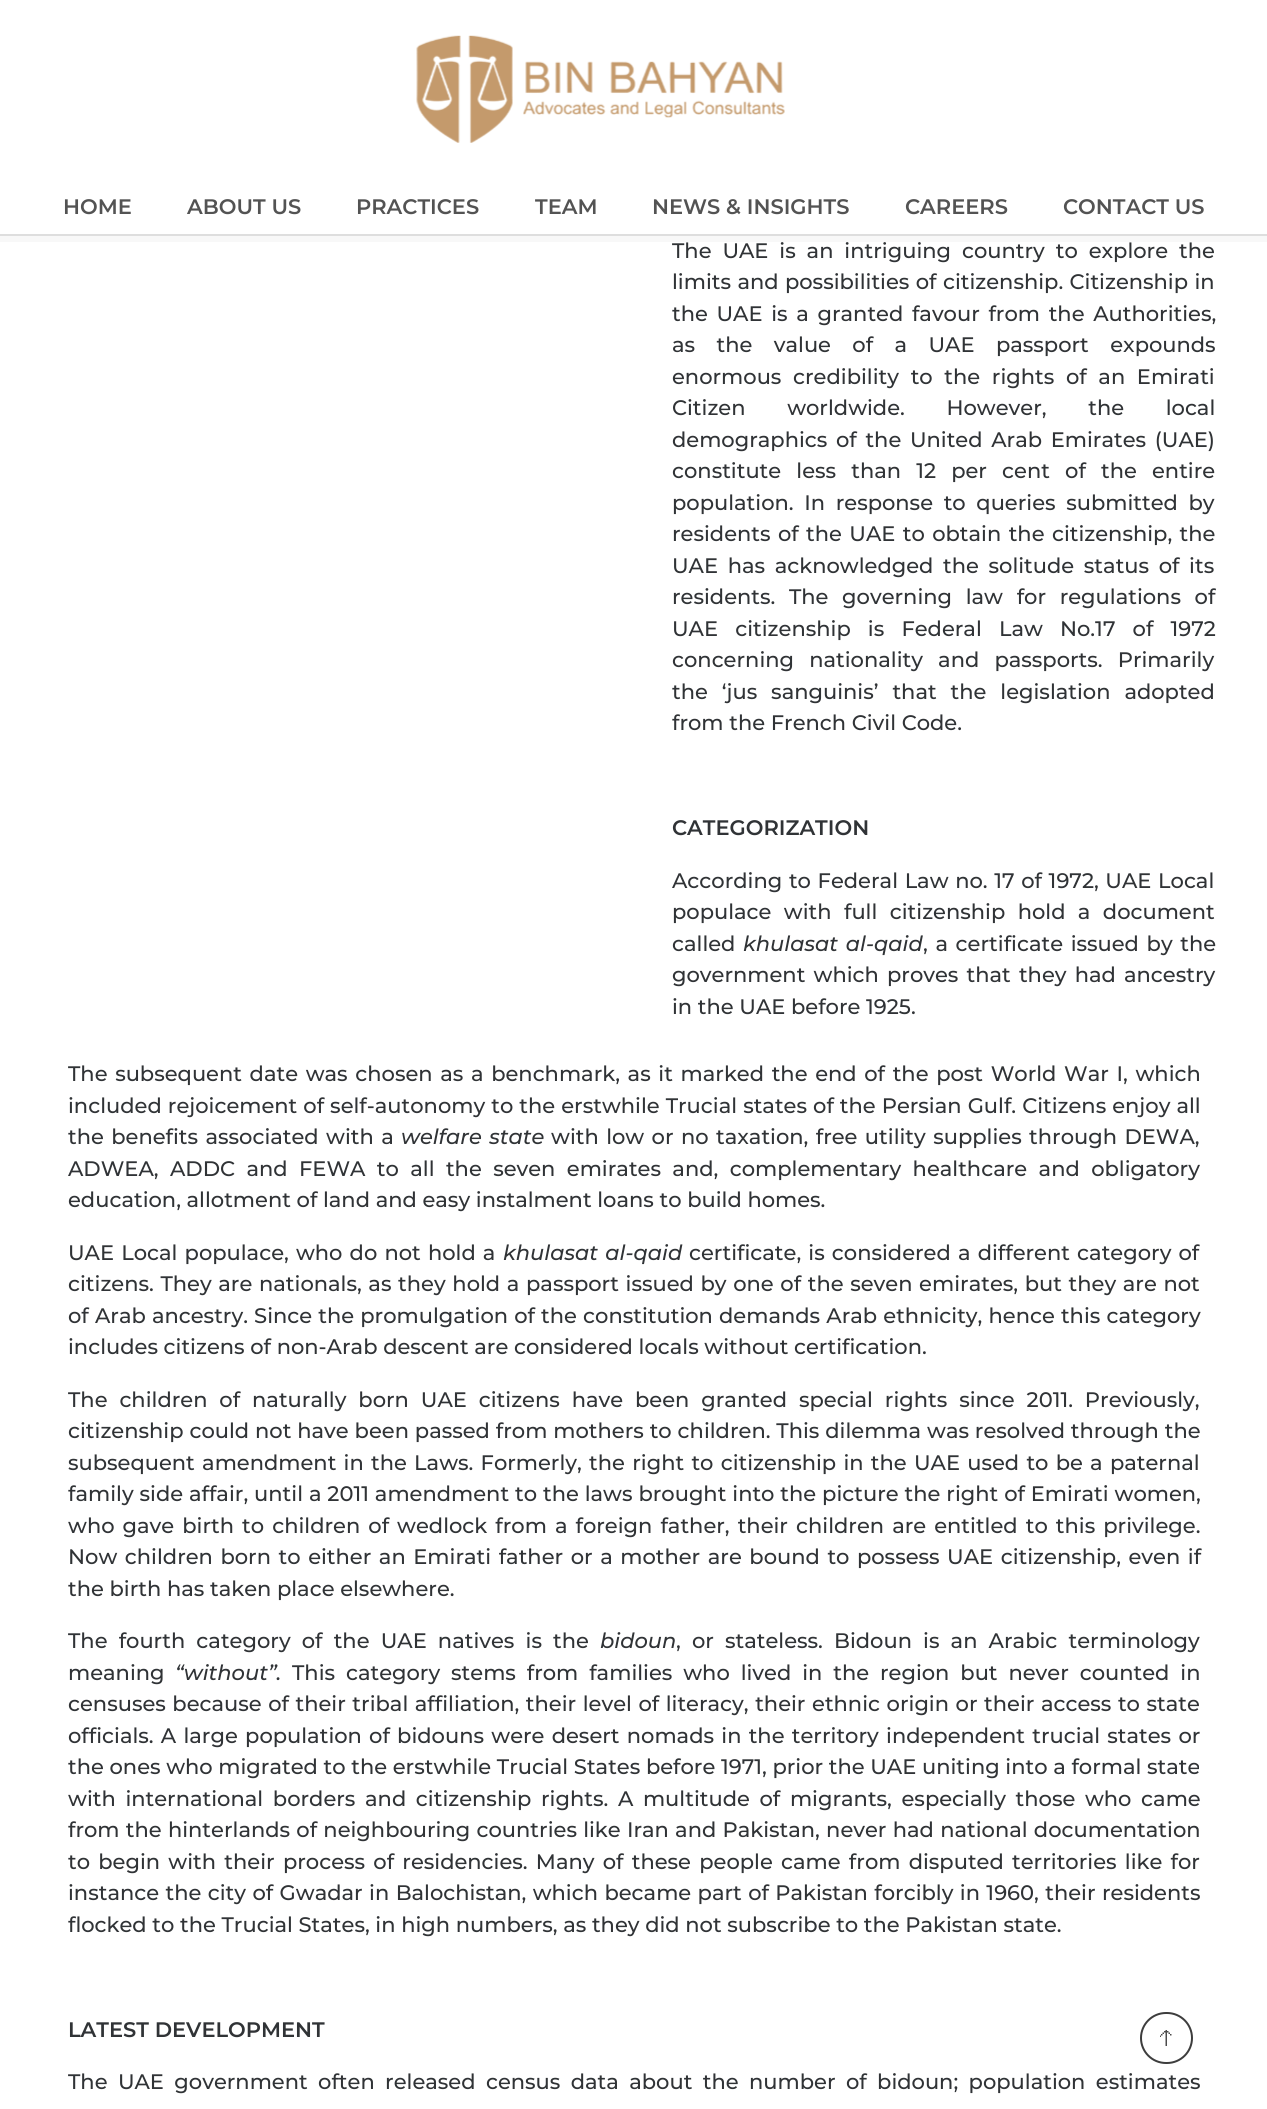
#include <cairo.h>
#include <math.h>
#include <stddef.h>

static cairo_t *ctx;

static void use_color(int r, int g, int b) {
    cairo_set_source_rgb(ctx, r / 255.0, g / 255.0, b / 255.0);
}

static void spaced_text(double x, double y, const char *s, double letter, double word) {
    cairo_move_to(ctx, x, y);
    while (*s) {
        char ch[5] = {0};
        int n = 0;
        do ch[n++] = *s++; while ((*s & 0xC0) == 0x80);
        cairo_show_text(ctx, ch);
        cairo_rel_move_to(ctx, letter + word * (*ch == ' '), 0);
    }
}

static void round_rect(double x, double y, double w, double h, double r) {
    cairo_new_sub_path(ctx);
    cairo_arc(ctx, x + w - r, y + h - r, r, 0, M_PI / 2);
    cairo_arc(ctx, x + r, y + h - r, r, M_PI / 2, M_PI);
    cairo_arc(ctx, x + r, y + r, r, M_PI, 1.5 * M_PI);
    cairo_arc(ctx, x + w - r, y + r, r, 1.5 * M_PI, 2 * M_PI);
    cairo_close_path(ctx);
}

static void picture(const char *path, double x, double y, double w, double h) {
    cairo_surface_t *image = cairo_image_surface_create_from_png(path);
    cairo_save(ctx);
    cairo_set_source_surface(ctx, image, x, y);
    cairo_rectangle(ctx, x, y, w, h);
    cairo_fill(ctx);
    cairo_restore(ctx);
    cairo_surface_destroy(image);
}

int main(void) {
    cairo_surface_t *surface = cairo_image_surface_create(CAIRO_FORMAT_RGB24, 1267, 2109);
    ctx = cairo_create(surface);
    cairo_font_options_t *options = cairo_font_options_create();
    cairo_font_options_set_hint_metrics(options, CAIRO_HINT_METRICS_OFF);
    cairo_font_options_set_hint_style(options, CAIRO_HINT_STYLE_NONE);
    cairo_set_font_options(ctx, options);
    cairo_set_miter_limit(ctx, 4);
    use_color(255, 255, 255);
    cairo_paint(ctx);
    use_color(248, 248, 248);
    cairo_new_path(ctx);
    cairo_move_to(ctx, 0, 236);
    cairo_line_to(ctx, 0, 242);
    cairo_line_to(ctx, 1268, 242);
    cairo_line_to(ctx, 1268, 6);
    cairo_line_to(ctx, 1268, 236);
    cairo_close_path(ctx);
    cairo_fill(ctx);
    use_color(222, 222, 222);
    cairo_rectangle(ctx, 0, 234, 1267, 2);
    cairo_fill(ctx);
    picture("img1.png", 416, 35, 369, 108);
    cairo_select_font_face(ctx, "Montserrat SemiBold", CAIRO_FONT_SLANT_NORMAL, CAIRO_FONT_WEIGHT_NORMAL);
    cairo_set_font_size(ctx, 21);
    use_color(83, 83, 83);
    cairo_move_to(ctx, 63, 214);
    cairo_show_text(ctx, "HOME");
    cairo_move_to(ctx, 187, 214);
    cairo_show_text(ctx, "ABOUT US");
    cairo_move_to(ctx, 356, 214);
    cairo_show_text(ctx, "PRACTICES");
    cairo_move_to(ctx, 535, 214);
    cairo_show_text(ctx, "TEAM");
    cairo_move_to(ctx, 652, 214);
    cairo_show_text(ctx, "NEWS & INSIGHTS");
    cairo_move_to(ctx, 905, 214);
    cairo_show_text(ctx, "CAREERS");
    cairo_move_to(ctx, 1063, 214);
    cairo_show_text(ctx, "CONTACT US");
    cairo_select_font_face(ctx, "Montserrat Medium", CAIRO_FONT_SLANT_NORMAL, CAIRO_FONT_WEIGHT_NORMAL);
    use_color(48, 51, 54);
    spaced_text(672, 258, "The UAE is an intriguing country to explore the", 0, 5.25);
    spaced_text(672, 289, "limits and possibilities of citizenship. Citizenship in", 0, 0.75);
    spaced_text(672, 321, "the UAE is a granted favour from the Authorities,", 0, 3);
    spaced_text(672, 352, "as the value of a UAE passport expounds", 0, 15.75);
    spaced_text(672, 384, "enormous credibility to the rights of an Emirati", 0, 6);
    spaced_text(672, 415, "Citizen worldwide. However, the local", 0, 36);
    spaced_text(672, 447, "demographics of the United Arab Emirates (UAE)", 0, 3);
    spaced_text(672, 478, "constitute less than 12 per cent of the entire", 0, 9.5);
    spaced_text(672, 510, "population. In response to queries submitted by", 0, 5);
    spaced_text(672, 541, "residents of the UAE to obtain the citizenship, the", 0, 1.75);
    spaced_text(672, 573, "UAE has acknowledged the solitude status of its", 0, 4);
    spaced_text(672, 604, "residents. The governing law for regulations of", 0, 8);
    spaced_text(672, 636, "UAE citizenship is Federal Law No.17 of 1972", 0, 11.5);
    spaced_text(672, 667, "concerning nationality and passports. Primarily", 0, 9.5);
    spaced_text(672, 699, "the ‘jus sanguinis’ that the legislation adopted", 0, 8.25);
    cairo_move_to(ctx, 672, 730);
    cairo_show_text(ctx, "from the French Civil Code.");
    cairo_select_font_face(ctx, "Montserrat SemiBold", CAIRO_FONT_SLANT_NORMAL, CAIRO_FONT_WEIGHT_NORMAL);
    cairo_move_to(ctx, 672, 835);
    cairo_show_text(ctx, "CATEGORIZATION");
    cairo_select_font_face(ctx, "Montserrat Medium", CAIRO_FONT_SLANT_NORMAL, CAIRO_FONT_WEIGHT_NORMAL);
    spaced_text(672, 888, "According to Federal Law no. 17 of 1972, UAE Local", 0, 1);
    spaced_text(672, 919, "populace with full citizenship hold a document", 0, 6.75);
    cairo_move_to(ctx, 672, 951);
    cairo_show_text(ctx, "called");
    cairo_select_font_face(ctx, "Montserrat Medium", CAIRO_FONT_SLANT_ITALIC, CAIRO_FONT_WEIGHT_NORMAL);
    spaced_text(743, 951, "khulasat al-qaid", 0, 2);
    cairo_select_font_face(ctx, "Montserrat Medium", CAIRO_FONT_SLANT_NORMAL, CAIRO_FONT_WEIGHT_NORMAL);
    spaced_text(923, 951, ", a certificate issued by the", 0, 2);
    spaced_text(672, 982, "government which proves that they had ancestry", 0, 2.5);
    cairo_move_to(ctx, 672, 1014);
    cairo_show_text(ctx, "in the UAE before 1925.");
    spaced_text(68, 1081, "The subsequent date was chosen as a benchmark, as it marked the end of the post World War I, which", 0, 2);
    spaced_text(68, 1113, "included rejoicement of self-autonomy to the erstwhile Trucial states of the Persian Gulf. Citizens enjoy all", 0, 0.4);
    spaced_text(68, 1144, "the benefits associated with a", 0, 1.75);
    cairo_select_font_face(ctx, "Montserrat Medium", CAIRO_FONT_SLANT_ITALIC, CAIRO_FONT_WEIGHT_NORMAL);
    spaced_text(401, 1144, "welfare state", 0, 1.75);
    cairo_select_font_face(ctx, "Montserrat Medium", CAIRO_FONT_SLANT_NORMAL, CAIRO_FONT_WEIGHT_NORMAL);
    spaced_text(551, 1144, "with low or no taxation, free utility supplies through DEWA,", 0, 1.75);
    spaced_text(68, 1176, "ADWEA, ADDC and FEWA to all the seven emirates and, complementary healthcare and obligatory", 0, 5.75);
    cairo_move_to(ctx, 68, 1207);
    cairo_show_text(ctx, "education, allotment of land and easy instalment loans to build homes.");
    spaced_text(68, 1260, "UAE Local populace, who do not hold a", 0, 1.5);
    cairo_select_font_face(ctx, "Montserrat Medium", CAIRO_FONT_SLANT_ITALIC, CAIRO_FONT_WEIGHT_NORMAL);
    spaced_text(503, 1260, "khulasat al-qaid", 0, 1.5);
    cairo_select_font_face(ctx, "Montserrat Medium", CAIRO_FONT_SLANT_NORMAL, CAIRO_FONT_WEIGHT_NORMAL);
    spaced_text(689, 1260, "certificate, is considered a different category of", 0, 1.5);
    spaced_text(68, 1291, "citizens. They are nationals, as they hold a passport issued by one of the seven emirates, but they are not", 0, 1);
    spaced_text(68, 1323, "of Arab ancestry. Since the promulgation of the constitution demands Arab ethnicity, hence this category", 0, 0.5);
    cairo_move_to(ctx, 68, 1354);
    cairo_show_text(ctx, "includes citizens of non-Arab descent are considered locals without certification.");
    spaced_text(68, 1407, "The children of naturally born UAE citizens have been granted special rights since 2011. Previously,", 0, 6.25);
    spaced_text(68, 1438, "citizenship could not have been passed from mothers to children. This dilemma was resolved through the", 0, 0.25);
    spaced_text(68, 1470, "subsequent amendment in the Laws. Formerly, the right to citizenship in the UAE used to be a paternal", 0, 1.6);
    spaced_text(68, 1501, "family side affair, until a 2011 amendment to the laws brought into the picture the right of Emirati women,", 0, 0.25);
    spaced_text(68, 1533, "who gave birth to children of wedlock from a foreign father, their children are entitled to this privilege.", 0, 2.4);
    spaced_text(68, 1564, "Now children born to either an Emirati father or a mother are bound to possess UAE citizenship, even if", 0, 1.9);
    cairo_move_to(ctx, 68, 1596);
    cairo_show_text(ctx, "the birth has taken place elsewhere.");
    spaced_text(68, 1648, "The fourth category of the UAE natives is the", 0, 5.5);
    cairo_select_font_face(ctx, "Montserrat Medium", CAIRO_FONT_SLANT_ITALIC, CAIRO_FONT_WEIGHT_NORMAL);
    cairo_move_to(ctx, 600, 1648);
    cairo_show_text(ctx, "bidoun");
    cairo_select_font_face(ctx, "Montserrat Medium", CAIRO_FONT_SLANT_NORMAL, CAIRO_FONT_WEIGHT_NORMAL);
    spaced_text(676, 1648, ", or stateless. Bidoun is an Arabic terminology", 0, 5.5);
    cairo_move_to(ctx, 68, 1680);
    cairo_show_text(ctx, "meaning");
    cairo_select_font_face(ctx, "Montserrat Medium", CAIRO_FONT_SLANT_ITALIC, CAIRO_FONT_WEIGHT_NORMAL);
    cairo_move_to(ctx, 175, 1680);
    cairo_show_text(ctx, "“without”.");
    cairo_select_font_face(ctx, "Montserrat Medium", CAIRO_FONT_SLANT_NORMAL, CAIRO_FONT_WEIGHT_NORMAL);
    spaced_text(292, 1680, "This category stems from families who lived in the region but never counted in", 0, 5.25);
    spaced_text(68, 1711, "censuses because of their tribal affiliation, their level of literacy, their ethnic origin or their access to state", 0, 0.9);
    spaced_text(68, 1743, "officials. A large population of bidouns were desert nomads in the territory independent trucial states or", 0, 1.6);
    cairo_move_to(ctx, 68, 1774);
    cairo_show_text(ctx, "the ones who migrated to the erstwhile Trucial States before 1971, prior the UAE uniting into a formal state");
    spaced_text(68, 1806, "with international borders and citizenship rights. A multitude of migrants, especially those who came", 0, 4);
    spaced_text(68, 1837, "from the hinterlands of neighbouring countries like Iran and Pakistan, never had national documentation", 0, 0.6);
    spaced_text(68, 1869, "to begin with their process of residencies. Many of these people came from disputed territories like for", 0, 2.6);
    spaced_text(68, 1900, "instance the city of Gwadar in Balochistan, which became part of Pakistan forcibly in 1960, their residents", 0, 0.75);
    cairo_move_to(ctx, 68, 1932);
    cairo_show_text(ctx, "flocked to the Trucial States, in high numbers, as they did not subscribe to the Pakistan state.");
    cairo_select_font_face(ctx, "Montserrat SemiBold", CAIRO_FONT_SLANT_NORMAL, CAIRO_FONT_WEIGHT_NORMAL);
    cairo_move_to(ctx, 68, 2037);
    cairo_show_text(ctx, "LATEST DEVELOPMENT");
    cairo_select_font_face(ctx, "Montserrat Medium", CAIRO_FONT_SLANT_NORMAL, CAIRO_FONT_WEIGHT_NORMAL);
    spaced_text(68, 2089, "The UAE government often released census data about the number of bidoun; population estimates", 0, 4.75);
    round_rect(1141, 2013, 51, 50, 25);
    use_color(61, 61, 61);
    cairo_stroke(ctx);
    picture("img2.png", 1160, 2030, 12, 16);
    cairo_surface_write_to_png(surface, "result.png");
    cairo_font_options_destroy(options);
    cairo_destroy(ctx);
    cairo_surface_destroy(surface);
    return 0;
}
